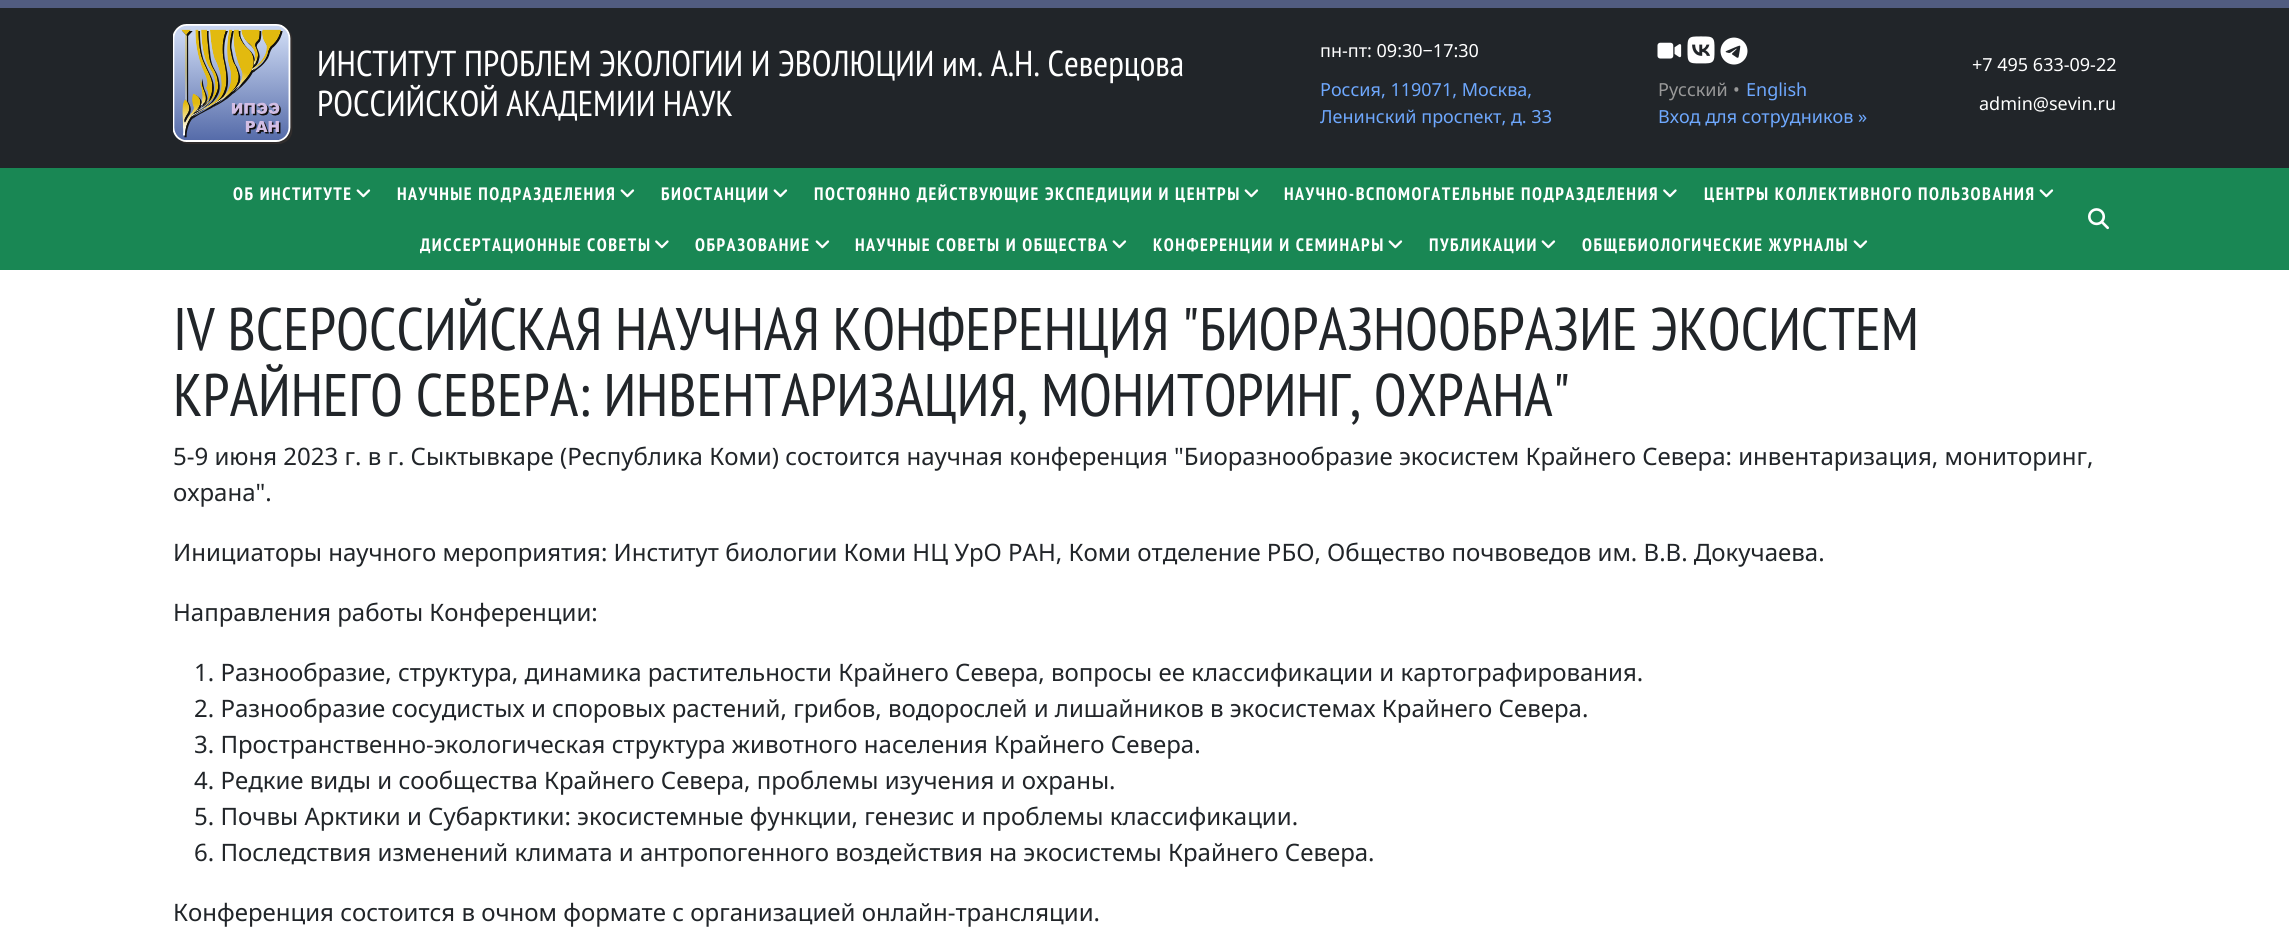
#include <cairo.h>
#include <math.h>
#include <stddef.h>

static cairo_t *ctx;

static void use_color(int r, int g, int b) {
    cairo_set_source_rgb(ctx, r / 255.0, g / 255.0, b / 255.0);
}

static void spaced_text(double x, double y, const char *s, double letter, double word) {
    cairo_move_to(ctx, x, y);
    while (*s) {
        char ch[5] = {0};
        int n = 0;
        do ch[n++] = *s++; while ((*s & 0xC0) == 0x80);
        cairo_show_text(ctx, ch);
        cairo_rel_move_to(ctx, letter + word * (*ch == ' '), 0);
    }
}

static void picture(const char *path, double x, double y, double w, double h) {
    cairo_surface_t *image = cairo_image_surface_create_from_png(path);
    cairo_save(ctx);
    cairo_set_source_surface(ctx, image, x, y);
    cairo_rectangle(ctx, x, y, w, h);
    cairo_fill(ctx);
    cairo_restore(ctx);
    cairo_surface_destroy(image);
}

int main(void) {
    cairo_surface_t *surface = cairo_image_surface_create(CAIRO_FORMAT_RGB24, 2289, 952);
    ctx = cairo_create(surface);
    cairo_font_options_t *options = cairo_font_options_create();
    cairo_font_options_set_hint_metrics(options, CAIRO_HINT_METRICS_OFF);
    cairo_font_options_set_hint_style(options, CAIRO_HINT_STYLE_NONE);
    cairo_set_font_options(ctx, options);
    cairo_set_miter_limit(ctx, 4);
    use_color(255, 255, 255);
    cairo_paint(ctx);
    use_color(81, 92, 128);
    cairo_rectangle(ctx, 0, 0, 2289, 8);
    cairo_fill(ctx);
    use_color(33, 37, 41);
    cairo_rectangle(ctx, 0, 8, 2289, 160);
    cairo_fill(ctx);
    picture("img1.png", 173, 24, 120, 120);
    cairo_select_font_face(ctx, "PT Sans Narrow", CAIRO_FONT_SLANT_NORMAL, CAIRO_FONT_WEIGHT_NORMAL);
    cairo_set_font_size(ctx, 36);
    use_color(255, 255, 255);
    cairo_move_to(ctx, 317, 76);
    cairo_show_text(ctx, "ИНСТИТУТ ПРОБЛЕМ ЭКОЛОГИИ И ЭВОЛЮЦИИ им. А.Н. Северцова");
    cairo_move_to(ctx, 317, 116);
    cairo_show_text(ctx, "РОССИЙСКОЙ АКАДЕМИИ НАУК");
    cairo_select_font_face(ctx, "Noto Sans", CAIRO_FONT_SLANT_NORMAL, CAIRO_FONT_WEIGHT_NORMAL);
    cairo_set_font_size(ctx, 18);
    cairo_move_to(ctx, 1320, 57);
    cairo_show_text(ctx, "пн-пт: 09:30−17:30");
    use_color(110, 168, 254);
    cairo_move_to(ctx, 1320, 96);
    cairo_show_text(ctx, "Россия, 119071, Москва,");
    cairo_move_to(ctx, 1320, 123);
    cairo_show_text(ctx, "Ленинский проспект, д. 33");
    picture("img2.png", 1657, 42, 25, 17);
    picture("img3.png", 1687, 36, 28, 28);
    picture("img4.png", 1720, 37, 28, 28);
    use_color(153, 153, 153);
    cairo_move_to(ctx, 1658, 96);
    cairo_show_text(ctx, "Русский");
    cairo_move_to(ctx, 1733, 96);
    cairo_show_text(ctx, "•");
    use_color(110, 168, 254);
    cairo_move_to(ctx, 1746, 96);
    cairo_show_text(ctx, "English");
    cairo_move_to(ctx, 1658, 123);
    cairo_show_text(ctx, "Вход для сотрудников »");
    use_color(255, 255, 255);
    cairo_move_to(ctx, 1972, 71);
    cairo_show_text(ctx, "+7 495 633-09-22");
    cairo_move_to(ctx, 1979, 110);
    cairo_show_text(ctx, "admin@sevin.ru");
    use_color(25, 135, 84);
    cairo_rectangle(ctx, 0, 168, 2289, 102);
    cairo_fill(ctx);
    cairo_select_font_face(ctx, "PT Sans Narrow", CAIRO_FONT_SLANT_NORMAL, CAIRO_FONT_WEIGHT_BOLD);
    use_color(255, 255, 255);
    spaced_text(233, 200, "ОБ ИНСТИТУТЕ", 1.5, 0);
    picture("img5.png", 356, 189, 15, 9);
    spaced_text(397, 200, "НАУЧНЫЕ ПОДРАЗДЕЛЕНИЯ", 1.5, 0);
    picture("img5.png", 620, 189, 15, 9);
    spaced_text(661, 200, "БИОСТАНЦИИ", 1.5, 0);
    picture("img5.png", 773, 189, 15, 9);
    spaced_text(814, 200, "ПОСТОЯННО ДЕЙСТВУЮЩИЕ ЭКСПЕДИЦИИ И ЦЕНТРЫ", 1.5, 0);
    picture("img5.png", 1244, 189, 15, 9);
    spaced_text(1284, 200, "НАУЧНО-ВСПОМОГАТЕЛЬНЫЕ ПОДРАЗДЕЛЕНИЯ", 1.5, 0);
    picture("img6.png", 1663, 189, 14, 9);
    spaced_text(1704, 200, "ЦЕНТРЫ КОЛЛЕКТИВНОГО ПОЛЬЗОВАНИЯ", 1.5, 0);
    picture("img5.png", 2039, 189, 15, 9);
    spaced_text(420, 251, "ДИССЕРТАЦИОННЫЕ СОВЕТЫ", 1.5, 0);
    picture("img6.png", 655, 240, 14, 9);
    spaced_text(695, 251, "ОБРАЗОВАНИЕ", 1.5, 0);
    picture("img5.png", 815, 240, 15, 9);
    spaced_text(855, 251, "НАУЧНЫЕ СОВЕТЫ И ОБЩЕСТВА", 1.5, 0);
    picture("img5.png", 1112, 240, 15, 9);
    spaced_text(1153, 251, "КОНФЕРЕНЦИИ И СЕМИНАРЫ", 1.5, 0);
    picture("img5.png", 1388, 240, 15, 9);
    spaced_text(1429, 251, "ПУБЛИКАЦИИ", 1.5, 0);
    picture("img5.png", 1541, 240, 15, 9);
    spaced_text(1582, 251, "ОБЩЕБИОЛОГИЧЕСКИЕ ЖУРНАЛЫ", 1.5, 0);
    picture("img5.png", 1853, 240, 15, 9);
    picture("img7.png", 2088, 208, 21, 22);
    cairo_select_font_face(ctx, "PT Sans Narrow", CAIRO_FONT_SLANT_NORMAL, CAIRO_FONT_WEIGHT_NORMAL);
    cairo_set_font_size(ctx, 60);
    use_color(33, 37, 41);
    cairo_move_to(ctx, 173, 350);
    cairo_show_text(ctx, "IV ВСЕРОССИЙСКАЯ НАУЧНАЯ КОНФЕРЕНЦИЯ \"БИОРАЗНООБРАЗИЕ ЭКОСИСТЕМ");
    cairo_move_to(ctx, 173, 416);
    cairo_show_text(ctx, "КРАЙНЕГО СЕВЕРА: ИНВЕНТАРИЗАЦИЯ, МОНИТОРИНГ, ОХРАНА\"");
    cairo_select_font_face(ctx, "Noto Sans", CAIRO_FONT_SLANT_NORMAL, CAIRO_FONT_WEIGHT_NORMAL);
    cairo_set_font_size(ctx, 24);
    cairo_move_to(ctx, 173, 465);
    cairo_show_text(ctx, "5-9 июня 2023 г. в г. Сыктывкаре (Республика Коми) состоится научная конференция \"Биоразнообразие экосистем Крайнего Севера: инвентаризация, мониторинг,");
    cairo_move_to(ctx, 173, 501);
    cairo_show_text(ctx, "охрана\".");
    cairo_move_to(ctx, 173, 561);
    cairo_show_text(ctx, "Инициаторы научного мероприятия: Институт биологии Коми НЦ УрО РАН, Коми отделение РБО, Общество почвоведов им. В.В. Докучаева.");
    cairo_move_to(ctx, 173, 621);
    cairo_show_text(ctx, "Направления работы Конференции:");
    cairo_move_to(ctx, 194, 681);
    cairo_show_text(ctx, "1. Разнообразие, структура, динамика растительности Крайнего Севера, вопросы ее классификации и картографирования.");
    cairo_move_to(ctx, 194, 717);
    cairo_show_text(ctx, "2. Разнообразие сосудистых и споровых растений, грибов, водорослей и лишайников в экосистемах Крайнего Севера.");
    cairo_move_to(ctx, 194, 753);
    cairo_show_text(ctx, "3. Пространственно-экологическая структура животного населения Крайнего Севера.");
    cairo_move_to(ctx, 194, 789);
    cairo_show_text(ctx, "4. Редкие виды и сообщества Крайнего Севера, проблемы изучения и охраны.");
    cairo_move_to(ctx, 194, 825);
    cairo_show_text(ctx, "5. Почвы Арктики и Субарктики: экосистемные функции, генезис и проблемы классификации.");
    cairo_move_to(ctx, 194, 861);
    cairo_show_text(ctx, "6. Последствия изменений климата и антропогенного воздействия на экосистемы Крайнего Севера.");
    cairo_move_to(ctx, 173, 921);
    cairo_show_text(ctx, "Конференция состоится в очном формате с организацией онлайн-трансляции.");
    cairo_surface_write_to_png(surface, "result.png");
    cairo_font_options_destroy(options);
    cairo_destroy(ctx);
    cairo_surface_destroy(surface);
    return 0;
}
